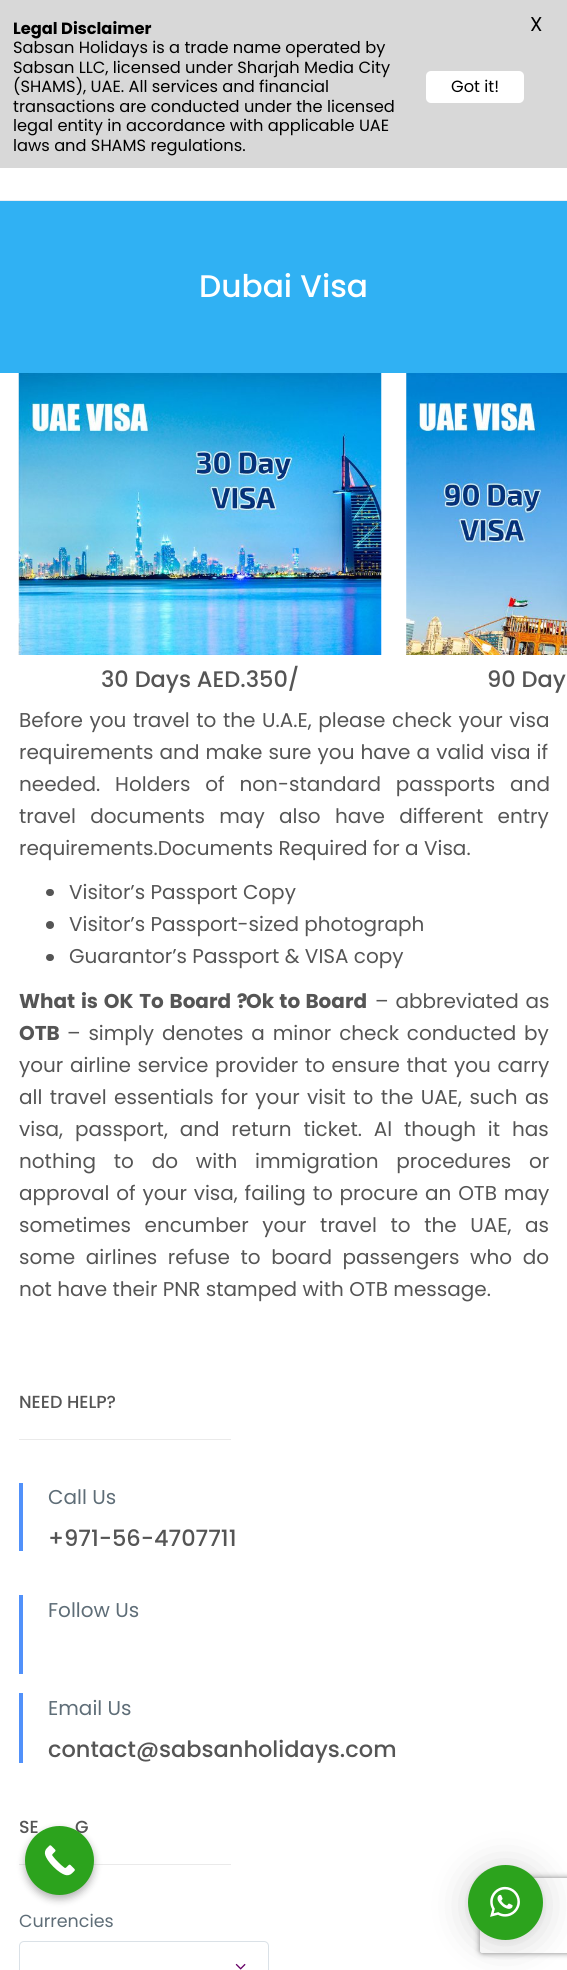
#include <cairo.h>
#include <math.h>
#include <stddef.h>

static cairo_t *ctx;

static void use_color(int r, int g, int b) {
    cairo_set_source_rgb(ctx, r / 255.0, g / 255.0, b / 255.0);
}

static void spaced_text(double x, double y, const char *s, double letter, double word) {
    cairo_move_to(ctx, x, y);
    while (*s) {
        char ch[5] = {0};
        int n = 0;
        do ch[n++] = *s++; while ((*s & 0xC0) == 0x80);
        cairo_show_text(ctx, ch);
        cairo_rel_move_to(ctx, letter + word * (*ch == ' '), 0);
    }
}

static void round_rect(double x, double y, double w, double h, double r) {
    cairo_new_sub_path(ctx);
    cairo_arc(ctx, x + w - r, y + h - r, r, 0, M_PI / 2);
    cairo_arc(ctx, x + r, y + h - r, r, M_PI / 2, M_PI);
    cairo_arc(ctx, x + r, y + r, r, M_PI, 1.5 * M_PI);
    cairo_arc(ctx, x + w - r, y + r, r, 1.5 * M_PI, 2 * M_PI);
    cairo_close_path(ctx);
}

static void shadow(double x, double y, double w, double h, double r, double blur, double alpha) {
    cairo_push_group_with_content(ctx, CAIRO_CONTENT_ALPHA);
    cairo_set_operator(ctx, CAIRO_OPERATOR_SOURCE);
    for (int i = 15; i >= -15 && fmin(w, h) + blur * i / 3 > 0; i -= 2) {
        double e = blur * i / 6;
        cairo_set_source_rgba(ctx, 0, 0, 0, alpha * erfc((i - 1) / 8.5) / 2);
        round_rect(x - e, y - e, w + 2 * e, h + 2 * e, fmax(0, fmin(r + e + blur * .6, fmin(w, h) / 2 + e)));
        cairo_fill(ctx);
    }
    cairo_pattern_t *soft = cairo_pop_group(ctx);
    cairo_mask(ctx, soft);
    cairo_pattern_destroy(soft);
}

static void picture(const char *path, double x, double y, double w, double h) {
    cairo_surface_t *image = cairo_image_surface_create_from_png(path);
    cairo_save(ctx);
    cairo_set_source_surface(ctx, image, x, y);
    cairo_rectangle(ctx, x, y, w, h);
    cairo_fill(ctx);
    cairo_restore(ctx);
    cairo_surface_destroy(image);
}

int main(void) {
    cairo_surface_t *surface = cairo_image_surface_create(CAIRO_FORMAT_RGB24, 567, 1970);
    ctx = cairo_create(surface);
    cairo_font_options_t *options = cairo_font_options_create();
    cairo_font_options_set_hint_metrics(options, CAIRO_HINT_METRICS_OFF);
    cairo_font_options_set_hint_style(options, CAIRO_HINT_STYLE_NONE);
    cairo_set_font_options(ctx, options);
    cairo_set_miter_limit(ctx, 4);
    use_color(255, 255, 255);
    cairo_paint(ctx);
    use_color(216, 216, 216);
    cairo_rectangle(ctx, 0, 0, 567, 168);
    cairo_fill(ctx);
    cairo_select_font_face(ctx, "Poppins", CAIRO_FONT_SLANT_NORMAL, CAIRO_FONT_WEIGHT_BOLD);
    cairo_set_font_size(ctx, 16.25);
    use_color(0, 0, 0);
    cairo_move_to(ctx, 13, 34);
    cairo_show_text(ctx, "Legal Disclaimer");
    cairo_select_font_face(ctx, "Poppins", CAIRO_FONT_SLANT_NORMAL, CAIRO_FONT_WEIGHT_NORMAL);
    cairo_move_to(ctx, 13, 53);
    cairo_show_text(ctx, "Sabsan Holidays is a trade name operated by");
    cairo_move_to(ctx, 13, 73);
    cairo_show_text(ctx, "Sabsan LLC, licensed under Sharjah Media City");
    cairo_move_to(ctx, 13, 92);
    cairo_show_text(ctx, "(SHAMS), UAE. All services and financial");
    cairo_move_to(ctx, 13, 112);
    cairo_show_text(ctx, "transactions are conducted under the licensed");
    cairo_move_to(ctx, 13, 131);
    cairo_show_text(ctx, "legal entity in accordance with applicable UAE");
    cairo_move_to(ctx, 13, 151);
    cairo_show_text(ctx, "laws and SHAMS regulations.");
    use_color(255, 255, 255);
    round_rect(426, 71, 98, 32, 5);
    cairo_fill(ctx);
    use_color(0, 0, 0);
    cairo_move_to(ctx, 451, 92);
    cairo_show_text(ctx, "Got it!");
    cairo_set_font_size(ctx, 20);
    cairo_move_to(ctx, 530, 31);
    cairo_show_text(ctx, "X");
    use_color(234, 238, 243);
    cairo_rectangle(ctx, 0, 200, 567, 1);
    cairo_fill(ctx);
    use_color(48, 177, 243);
    cairo_rectangle(ctx, 0, 201, 567, 172);
    cairo_fill(ctx);
    cairo_select_font_face(ctx, "Poppins Medium", CAIRO_FONT_SLANT_NORMAL, CAIRO_FONT_WEIGHT_NORMAL);
    cairo_set_font_size(ctx, 31.25);
    use_color(255, 255, 255);
    cairo_move_to(ctx, 199, 297);
    cairo_show_text(ctx, "Dubai Visa");
    picture("img1.png", 18, 373, 364, 282);
    picture("img2.png", 406, 373, 161, 282);
    cairo_set_font_size(ctx, 22.5);
    use_color(85, 85, 85);
    cairo_move_to(ctx, 101, 687);
    cairo_show_text(ctx, "30 Days AED.350/");
    cairo_move_to(ctx, 487, 687);
    cairo_show_text(ctx, "90 Day");
    cairo_select_font_face(ctx, "Poppins", CAIRO_FONT_SLANT_NORMAL, CAIRO_FONT_WEIGHT_NORMAL);
    cairo_set_font_size(ctx, 20);
    spaced_text(19, 727, "Before you travel to the U.A.E, please check your visa", 0, 1.25);
    spaced_text(19, 759, "requirements and make sure you have a valid visa if", 0, 0.75);
    spaced_text(19, 791, "needed. Holders of non-standard passports and", 0, 9.5);
    spaced_text(19, 823, "travel documents may also have different entry", 0, 9);
    cairo_move_to(ctx, 19, 855);
    cairo_show_text(ctx, "requirements.Documents Required for a Visa.");
    round_rect(46, 889, 8, 7, 3.5);
    cairo_fill(ctx);
    cairo_move_to(ctx, 69, 899);
    cairo_show_text(ctx, "Visitor’s Passport Copy");
    cairo_new_path(ctx);
    cairo_arc(ctx, 50, 925, 4, 0, 2 * M_PI);
    cairo_fill(ctx);
    cairo_move_to(ctx, 69, 931);
    cairo_show_text(ctx, "Visitor’s Passport-sized photograph");
    round_rect(46, 954, 8, 7, 3.5);
    cairo_fill(ctx);
    cairo_move_to(ctx, 69, 963);
    cairo_show_text(ctx, "Guarantor’s Passport & VISA copy");
    cairo_select_font_face(ctx, "Poppins", CAIRO_FONT_SLANT_NORMAL, CAIRO_FONT_WEIGHT_BOLD);
    spaced_text(19, 1008, "What is OK To Board ?", 0, 1.5);
    spaced_text(246, 1008, "Ok to Board", 0, 1);
    cairo_select_font_face(ctx, "Poppins", CAIRO_FONT_SLANT_NORMAL, CAIRO_FONT_WEIGHT_NORMAL);
    spaced_text(375, 1008, "– abbreviated as", 0, 1.5);
    cairo_select_font_face(ctx, "Poppins", CAIRO_FONT_SLANT_NORMAL, CAIRO_FONT_WEIGHT_BOLD);
    cairo_move_to(ctx, 19, 1040);
    cairo_show_text(ctx, "OTB");
    cairo_select_font_face(ctx, "Poppins", CAIRO_FONT_SLANT_NORMAL, CAIRO_FONT_WEIGHT_NORMAL);
    spaced_text(67, 1040, "– simply denotes a minor check conducted by", 0, 2.5);
    spaced_text(19, 1072, "your airline service provider to ensure that you carry", 0, 1.25);
    spaced_text(19, 1104, "all travel essentials for your visit to the UAE, such as", 0, 2.1);
    spaced_text(19, 1136, "visa, passport, and return ticket. Al though it has", 0, 6.5);
    spaced_text(19, 1168, "nothing to do with immigration procedures or", 0, 12.5);
    spaced_text(19, 1200, "approval of your visa, failing to procure an OTB may", 0, 1.5);
    spaced_text(19, 1232, "sometimes encumber your travel to the UAE, as", 0, 8.25);
    spaced_text(19, 1264, "some airlines refuse to board passengers who do", 0, 5.25);
    cairo_move_to(ctx, 19, 1296);
    cairo_show_text(ctx, "not have their PNR stamped with OTB message.");
    cairo_select_font_face(ctx, "Poppins Medium", CAIRO_FONT_SLANT_NORMAL, CAIRO_FONT_WEIGHT_NORMAL);
    cairo_set_font_size(ctx, 17.5);
    cairo_move_to(ctx, 19, 1408);
    cairo_show_text(ctx, "NEED HELP?");
    use_color(234, 234, 234);
    cairo_rectangle(ctx, 19, 1439, 212, 1);
    cairo_fill(ctx);
    use_color(81, 145, 250);
    cairo_rectangle(ctx, 19, 1483, 4, 68);
    cairo_fill(ctx);
    cairo_select_font_face(ctx, "Poppins", CAIRO_FONT_SLANT_NORMAL, CAIRO_FONT_WEIGHT_NORMAL);
    cairo_set_font_size(ctx, 20);
    use_color(94, 109, 119);
    cairo_move_to(ctx, 48, 1504);
    cairo_show_text(ctx, "Call Us");
    cairo_select_font_face(ctx, "Poppins Medium", CAIRO_FONT_SLANT_NORMAL, CAIRO_FONT_WEIGHT_NORMAL);
    cairo_set_font_size(ctx, 22.5);
    use_color(85, 85, 85);
    cairo_move_to(ctx, 48, 1546);
    cairo_show_text(ctx, "+971-56-4707711");
    use_color(81, 145, 250);
    cairo_rectangle(ctx, 19, 1595, 4, 79);
    cairo_fill(ctx);
    cairo_select_font_face(ctx, "Poppins", CAIRO_FONT_SLANT_NORMAL, CAIRO_FONT_WEIGHT_NORMAL);
    cairo_set_font_size(ctx, 20);
    use_color(94, 109, 119);
    cairo_move_to(ctx, 48, 1617);
    cairo_show_text(ctx, "Follow Us");
    use_color(81, 145, 250);
    cairo_rectangle(ctx, 19, 1693, 4, 70);
    cairo_fill(ctx);
    use_color(94, 109, 119);
    cairo_move_to(ctx, 48, 1715);
    cairo_show_text(ctx, "Email Us");
    cairo_select_font_face(ctx, "Poppins Medium", CAIRO_FONT_SLANT_NORMAL, CAIRO_FONT_WEIGHT_NORMAL);
    cairo_set_font_size(ctx, 22.5);
    use_color(85, 85, 85);
    cairo_move_to(ctx, 48, 1757);
    cairo_show_text(ctx, "contact@sabsanholidays.com");
    cairo_set_font_size(ctx, 17.5);
    cairo_move_to(ctx, 19, 1833);
    cairo_show_text(ctx, "SE");
    cairo_move_to(ctx, 75, 1833);
    cairo_show_text(ctx, "G");
    use_color(234, 234, 234);
    cairo_rectangle(ctx, 19, 1864, 212, 1);
    cairo_fill(ctx);
    cairo_select_font_face(ctx, "Poppins", CAIRO_FONT_SLANT_NORMAL, CAIRO_FONT_WEIGHT_NORMAL);
    use_color(94, 109, 119);
    cairo_move_to(ctx, 19, 1927);
    cairo_show_text(ctx, "Currencies");
    round_rect(19.5, 1941.5, 249, 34, 4.5);
    use_color(218, 225, 231);
    cairo_set_line_width(ctx, 1);
    cairo_stroke(ctx);
    picture("img3.png", 235, 1963, 11, 7);
    use_color(0, 0, 0);
    shadow(468, 1868, 75, 75, 37.5, 20, 0.16);
    shadow(468, 1866, 75, 75, 37.5, 4, 0.06);
    cairo_save(ctx);
    cairo_set_fill_rule(ctx, CAIRO_FILL_RULE_EVEN_ODD);
    cairo_new_path(ctx);
    cairo_move_to(ctx, 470, 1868);
    cairo_line_to(ctx, 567, 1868);
    cairo_line_to(ctx, 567, 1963);
    cairo_line_to(ctx, 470, 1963);
    cairo_close_path(ctx);
    cairo_move_to(ctx, 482.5, 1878);
    cairo_line_to(ctx, 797.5, 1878);
    cairo_curve_to(ctx, 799, 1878, 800, 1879, 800, 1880.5);
    cairo_line_to(ctx, 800, 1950.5);
    cairo_curve_to(ctx, 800, 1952, 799, 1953, 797.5, 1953);
    cairo_line_to(ctx, 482.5, 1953);
    cairo_curve_to(ctx, 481, 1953, 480, 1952, 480, 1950.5);
    cairo_line_to(ctx, 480, 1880.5);
    cairo_curve_to(ctx, 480, 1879, 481, 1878, 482.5, 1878);
    cairo_close_path(ctx);
    cairo_clip(ctx);
    use_color(128, 128, 128);
    shadow(480, 1878, 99, 75, 2.5, 3, 1);
    cairo_restore(ctx);
    use_color(44, 163, 29);
    cairo_arc(ctx, 505.5, 1902.5, 37.5, 0, 2 * M_PI);
    cairo_fill(ctx);
    picture("img4.png", 490, 1886, 30, 31);
    use_color(0, 0, 0);
    shadow(25, 1830, 69, 69, 34.5, 4, 0.3);
    use_color(44, 163, 29);
    cairo_arc(ctx, 59.5, 1860.5, 34.5, 0, 2 * M_PI);
    cairo_fill(ctx);
    picture("img5.png", 44, 1845, 31, 31);
    cairo_surface_write_to_png(surface, "result.png");
    cairo_font_options_destroy(options);
    cairo_destroy(ctx);
    cairo_surface_destroy(surface);
    return 0;
}
